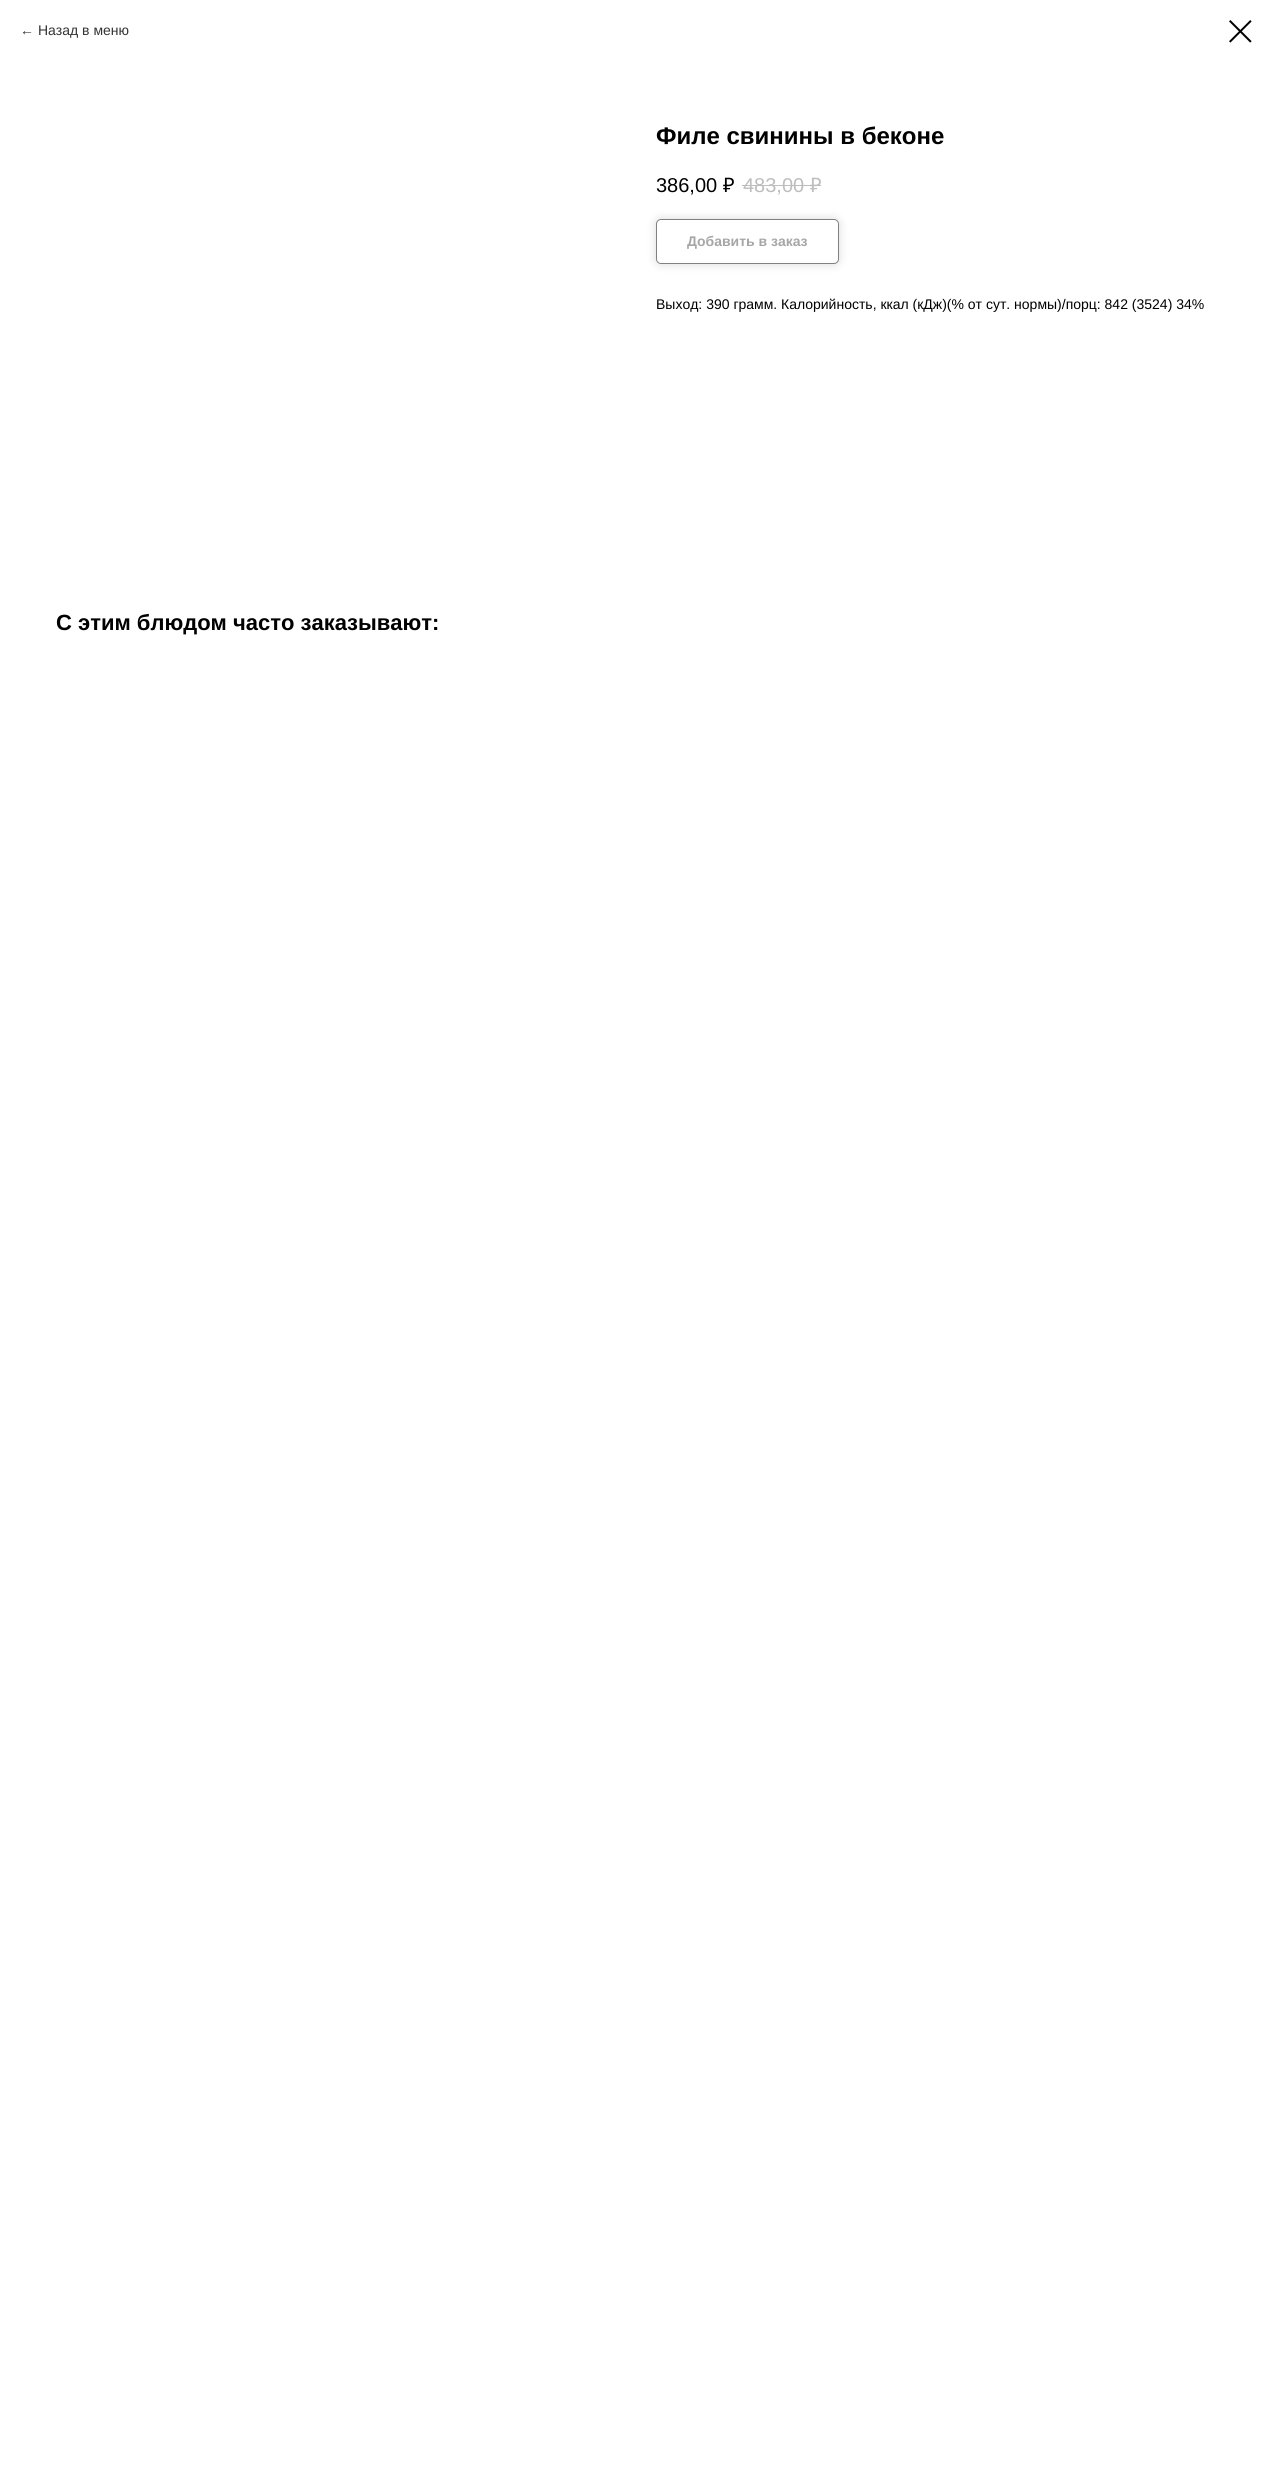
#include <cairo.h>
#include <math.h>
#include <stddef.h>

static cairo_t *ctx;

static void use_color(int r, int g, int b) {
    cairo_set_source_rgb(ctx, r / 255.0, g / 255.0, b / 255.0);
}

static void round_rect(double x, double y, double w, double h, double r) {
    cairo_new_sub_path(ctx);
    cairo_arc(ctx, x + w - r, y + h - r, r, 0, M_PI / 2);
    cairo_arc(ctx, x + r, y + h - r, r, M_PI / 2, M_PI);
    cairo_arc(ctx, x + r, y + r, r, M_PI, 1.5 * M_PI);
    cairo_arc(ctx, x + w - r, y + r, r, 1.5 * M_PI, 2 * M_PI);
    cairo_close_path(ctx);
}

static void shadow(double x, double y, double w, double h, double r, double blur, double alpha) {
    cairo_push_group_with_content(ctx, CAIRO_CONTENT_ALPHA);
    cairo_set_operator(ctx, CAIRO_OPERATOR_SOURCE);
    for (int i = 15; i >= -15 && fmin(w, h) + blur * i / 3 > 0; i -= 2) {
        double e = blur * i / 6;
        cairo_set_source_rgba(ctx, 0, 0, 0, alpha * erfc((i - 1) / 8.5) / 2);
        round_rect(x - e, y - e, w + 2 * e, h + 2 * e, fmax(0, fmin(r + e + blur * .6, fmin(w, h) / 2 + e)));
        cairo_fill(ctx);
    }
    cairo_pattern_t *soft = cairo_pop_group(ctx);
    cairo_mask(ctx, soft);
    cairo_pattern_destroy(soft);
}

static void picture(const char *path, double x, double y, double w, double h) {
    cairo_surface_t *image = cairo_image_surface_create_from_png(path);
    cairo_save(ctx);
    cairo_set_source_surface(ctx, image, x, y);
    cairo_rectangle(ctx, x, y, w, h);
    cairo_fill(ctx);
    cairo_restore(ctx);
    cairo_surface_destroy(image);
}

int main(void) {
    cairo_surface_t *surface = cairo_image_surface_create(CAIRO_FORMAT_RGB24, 1272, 2490);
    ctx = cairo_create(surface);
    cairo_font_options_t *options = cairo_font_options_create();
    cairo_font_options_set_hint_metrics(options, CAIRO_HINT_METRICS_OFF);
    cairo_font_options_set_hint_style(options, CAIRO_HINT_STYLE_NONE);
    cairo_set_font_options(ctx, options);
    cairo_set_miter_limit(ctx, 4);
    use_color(255, 255, 255);
    cairo_paint(ctx);
    cairo_select_font_face(ctx, "Liberation Sans", CAIRO_FONT_SLANT_NORMAL, CAIRO_FONT_WEIGHT_NORMAL);
    cairo_set_font_size(ctx, 14);
    use_color(51, 51, 51);
    cairo_move_to(ctx, 20, 35);
    cairo_show_text(ctx, "← Назад в меню");
    picture("img1.png", 1229, 20, 23, 23);
    cairo_select_font_face(ctx, "Liberation Sans", CAIRO_FONT_SLANT_NORMAL, CAIRO_FONT_WEIGHT_BOLD);
    cairo_set_font_size(ctx, 24);
    use_color(0, 0, 0);
    cairo_move_to(ctx, 656, 144);
    cairo_show_text(ctx, "Филе свинины в беконе");
    cairo_select_font_face(ctx, "Liberation Sans", CAIRO_FONT_SLANT_NORMAL, CAIRO_FONT_WEIGHT_NORMAL);
    cairo_set_font_size(ctx, 20);
    cairo_move_to(ctx, 656, 192);
    cairo_show_text(ctx, "386,00");
    cairo_select_font_face(ctx, "Noto Sans", CAIRO_FONT_SLANT_NORMAL, CAIRO_FONT_WEIGHT_NORMAL);
    cairo_move_to(ctx, 723, 192);
    cairo_show_text(ctx, "₽");
    cairo_select_font_face(ctx, "Liberation Sans", CAIRO_FONT_SLANT_NORMAL, CAIRO_FONT_WEIGHT_NORMAL);
    use_color(189, 189, 189);
    cairo_move_to(ctx, 743, 192);
    cairo_show_text(ctx, "483,00");
    cairo_select_font_face(ctx, "Noto Sans", CAIRO_FONT_SLANT_NORMAL, CAIRO_FONT_WEIGHT_NORMAL);
    cairo_move_to(ctx, 810, 192);
    cairo_show_text(ctx, "₽");
    cairo_rectangle(ctx, 742, 185, 79, 1);
    cairo_fill(ctx);
    cairo_save(ctx);
    cairo_set_fill_rule(ctx, CAIRO_FILL_RULE_EVEN_ODD);
    cairo_new_path(ctx);
    cairo_move_to(ctx, 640, 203);
    cairo_line_to(ctx, 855, 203);
    cairo_line_to(ctx, 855, 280);
    cairo_line_to(ctx, 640, 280);
    cairo_close_path(ctx);
    cairo_move_to(ctx, 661, 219);
    cairo_line_to(ctx, 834, 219);
    cairo_curve_to(ctx, 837, 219, 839, 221, 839, 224);
    cairo_line_to(ctx, 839, 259);
    cairo_curve_to(ctx, 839, 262, 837, 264, 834, 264);
    cairo_line_to(ctx, 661, 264);
    cairo_curve_to(ctx, 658, 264, 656, 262, 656, 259);
    cairo_line_to(ctx, 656, 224);
    cairo_curve_to(ctx, 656, 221, 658, 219, 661, 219);
    cairo_close_path(ctx);
    cairo_clip(ctx);
    use_color(128, 128, 128);
    shadow(656, 219, 183, 45, 5, 5, 0.3);
    cairo_restore(ctx);
    round_rect(656.5, 219.5, 182, 44, 4.5);
    use_color(128, 128, 128);
    cairo_set_line_width(ctx, 1);
    cairo_stroke(ctx);
    cairo_select_font_face(ctx, "Liberation Sans", CAIRO_FONT_SLANT_NORMAL, CAIRO_FONT_WEIGHT_BOLD);
    cairo_set_font_size(ctx, 14);
    use_color(166, 166, 166);
    cairo_move_to(ctx, 687, 246);
    cairo_show_text(ctx, "Добавить в заказ");
    cairo_select_font_face(ctx, "Liberation Sans", CAIRO_FONT_SLANT_NORMAL, CAIRO_FONT_WEIGHT_NORMAL);
    use_color(0, 0, 0);
    cairo_move_to(ctx, 656, 309);
    cairo_show_text(ctx, "Выход: 390 грамм. Калорийность, ккал (кДж)(% от сут. нормы)/порц: 842 (3524) 34%");
    cairo_select_font_face(ctx, "Liberation Sans", CAIRO_FONT_SLANT_NORMAL, CAIRO_FONT_WEIGHT_BOLD);
    cairo_set_font_size(ctx, 22);
    cairo_move_to(ctx, 56, 630);
    cairo_show_text(ctx, "С этим блюдом часто заказывают:");
    cairo_surface_write_to_png(surface, "result.png");
    cairo_font_options_destroy(options);
    cairo_destroy(ctx);
    cairo_surface_destroy(surface);
    return 0;
}
